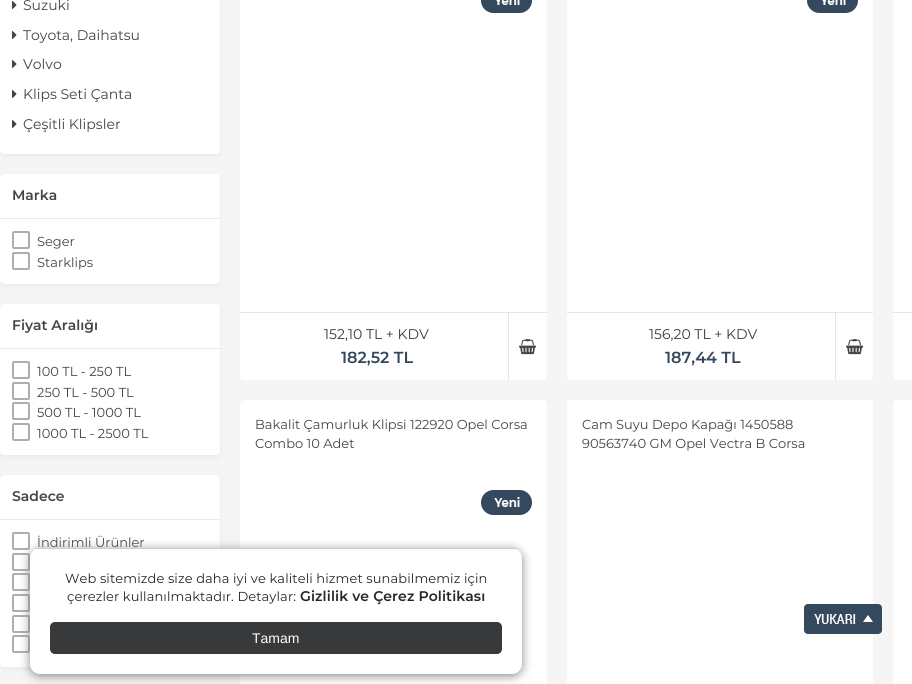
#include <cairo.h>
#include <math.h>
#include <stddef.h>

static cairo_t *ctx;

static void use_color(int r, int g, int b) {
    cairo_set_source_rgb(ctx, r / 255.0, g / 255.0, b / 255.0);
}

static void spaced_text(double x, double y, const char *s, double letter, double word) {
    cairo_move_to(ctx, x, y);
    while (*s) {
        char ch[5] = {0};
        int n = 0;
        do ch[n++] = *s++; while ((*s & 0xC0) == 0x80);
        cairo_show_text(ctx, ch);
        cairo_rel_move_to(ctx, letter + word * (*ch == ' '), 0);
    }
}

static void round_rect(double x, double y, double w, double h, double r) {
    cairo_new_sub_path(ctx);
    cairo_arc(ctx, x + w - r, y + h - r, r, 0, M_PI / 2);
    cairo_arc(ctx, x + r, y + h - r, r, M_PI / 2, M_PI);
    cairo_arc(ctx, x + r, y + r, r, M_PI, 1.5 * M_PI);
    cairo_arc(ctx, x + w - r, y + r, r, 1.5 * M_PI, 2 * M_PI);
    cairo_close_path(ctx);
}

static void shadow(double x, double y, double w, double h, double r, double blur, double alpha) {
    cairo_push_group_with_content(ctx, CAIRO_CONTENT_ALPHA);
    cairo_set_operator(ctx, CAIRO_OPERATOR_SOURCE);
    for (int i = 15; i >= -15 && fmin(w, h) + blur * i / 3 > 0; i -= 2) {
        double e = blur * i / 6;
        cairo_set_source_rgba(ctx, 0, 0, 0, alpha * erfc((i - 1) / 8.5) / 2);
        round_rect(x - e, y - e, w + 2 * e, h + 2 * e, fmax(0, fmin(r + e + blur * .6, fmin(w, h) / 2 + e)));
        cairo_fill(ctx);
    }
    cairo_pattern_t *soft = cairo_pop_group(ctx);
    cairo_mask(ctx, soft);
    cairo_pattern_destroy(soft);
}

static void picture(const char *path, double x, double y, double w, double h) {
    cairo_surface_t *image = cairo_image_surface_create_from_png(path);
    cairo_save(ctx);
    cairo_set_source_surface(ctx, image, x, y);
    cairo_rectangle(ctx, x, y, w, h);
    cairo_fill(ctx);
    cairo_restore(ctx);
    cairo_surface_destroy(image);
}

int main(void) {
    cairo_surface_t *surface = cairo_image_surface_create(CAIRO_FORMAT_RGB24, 912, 684);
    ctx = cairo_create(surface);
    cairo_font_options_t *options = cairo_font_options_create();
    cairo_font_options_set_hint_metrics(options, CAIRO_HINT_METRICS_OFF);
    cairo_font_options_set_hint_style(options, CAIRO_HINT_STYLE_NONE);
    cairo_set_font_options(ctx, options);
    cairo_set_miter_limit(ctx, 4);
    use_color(245, 245, 245);
    cairo_paint(ctx);
    use_color(0, 0, 0);
    shadow(0, -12, 220, 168, 4, 2.5, 0.05);
    use_color(255, 255, 255);
    round_rect(0, -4, 220, 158, 4);
    cairo_fill(ctx);
    picture("img1.png", 12, 1, 5, 8);
    cairo_select_font_face(ctx, "Montserrat", CAIRO_FONT_SLANT_NORMAL, CAIRO_FONT_WEIGHT_NORMAL);
    cairo_set_font_size(ctx, 14);
    use_color(68, 68, 68);
    cairo_move_to(ctx, 23, 10);
    cairo_show_text(ctx, "Suzuki");
    picture("img1.png", 12, 31, 5, 8);
    cairo_move_to(ctx, 23, 40);
    cairo_show_text(ctx, "Toyota, Daihatsu");
    picture("img1.png", 12, 60, 5, 8);
    cairo_move_to(ctx, 23, 69);
    cairo_show_text(ctx, "Volvo");
    picture("img1.png", 12, 90, 5, 8);
    cairo_move_to(ctx, 23, 99);
    cairo_show_text(ctx, "Klips Seti Çanta");
    picture("img1.png", 12, 120, 5, 8);
    cairo_move_to(ctx, 23, 129);
    cairo_show_text(ctx, "Çeşitli Klipsler");
    use_color(0, 0, 0);
    shadow(0, 176, 220, 110, 4, 2.5, 0.05);
    use_color(255, 255, 255);
    round_rect(0, 174, 220, 110, 4);
    cairo_fill(ctx);
    use_color(234, 234, 234);
    cairo_rectangle(ctx, 0, 218, 220, 1);
    cairo_fill(ctx);
    cairo_select_font_face(ctx, "Montserrat SemiBold", CAIRO_FONT_SLANT_NORMAL, CAIRO_FONT_WEIGHT_NORMAL);
    use_color(68, 68, 68);
    cairo_move_to(ctx, 12, 200);
    cairo_show_text(ctx, "Marka");
    picture("img2.png", 12, 231, 18, 18);
    cairo_select_font_face(ctx, "Montserrat", CAIRO_FONT_SLANT_NORMAL, CAIRO_FONT_WEIGHT_NORMAL);
    cairo_set_font_size(ctx, 13);
    cairo_move_to(ctx, 37, 246);
    cairo_show_text(ctx, "Seger");
    picture("img2.png", 12, 252, 18, 18);
    cairo_move_to(ctx, 37, 267);
    cairo_show_text(ctx, "Starklips");
    use_color(0, 0, 0);
    shadow(0, 306, 220, 151, 4, 2.5, 0.05);
    use_color(255, 255, 255);
    round_rect(0, 304, 220, 151, 4);
    cairo_fill(ctx);
    use_color(234, 234, 234);
    cairo_rectangle(ctx, 0, 348, 220, 1);
    cairo_fill(ctx);
    cairo_select_font_face(ctx, "Montserrat SemiBold", CAIRO_FONT_SLANT_NORMAL, CAIRO_FONT_WEIGHT_NORMAL);
    cairo_set_font_size(ctx, 14);
    use_color(68, 68, 68);
    cairo_move_to(ctx, 12, 330);
    cairo_show_text(ctx, "Fiyat Aralığı");
    picture("img2.png", 12, 361, 18, 18);
    cairo_select_font_face(ctx, "Montserrat", CAIRO_FONT_SLANT_NORMAL, CAIRO_FONT_WEIGHT_NORMAL);
    cairo_set_font_size(ctx, 13);
    cairo_move_to(ctx, 37, 376);
    cairo_show_text(ctx, "100 TL - 250 TL");
    picture("img2.png", 12, 382, 18, 18);
    cairo_move_to(ctx, 37, 397);
    cairo_show_text(ctx, "250 TL - 500 TL");
    picture("img2.png", 12, 402, 18, 18);
    cairo_move_to(ctx, 37, 417);
    cairo_show_text(ctx, "500 TL - 1000 TL");
    picture("img2.png", 12, 423, 18, 18);
    cairo_move_to(ctx, 37, 438);
    cairo_show_text(ctx, "1000 TL - 2500 TL");
    use_color(0, 0, 0);
    shadow(0, 477, 220, 192, 4, 2.5, 0.05);
    use_color(255, 255, 255);
    round_rect(0, 475, 220, 192, 4);
    cairo_fill(ctx);
    use_color(234, 234, 234);
    cairo_rectangle(ctx, 0, 519, 220, 1);
    cairo_fill(ctx);
    cairo_select_font_face(ctx, "Montserrat SemiBold", CAIRO_FONT_SLANT_NORMAL, CAIRO_FONT_WEIGHT_NORMAL);
    cairo_set_font_size(ctx, 14);
    use_color(68, 68, 68);
    cairo_move_to(ctx, 12, 501);
    cairo_show_text(ctx, "Sadece");
    picture("img2.png", 12, 532, 18, 18);
    cairo_select_font_face(ctx, "Montserrat", CAIRO_FONT_SLANT_NORMAL, CAIRO_FONT_WEIGHT_NORMAL);
    cairo_set_font_size(ctx, 13);
    cairo_move_to(ctx, 37, 547);
    cairo_show_text(ctx, "İndirimli Ürünler");
    picture("img2.png", 12, 553, 18, 18);
    picture("img2.png", 12, 573, 18, 18);
    picture("img2.png", 12, 594, 18, 18);
    picture("img2.png", 12, 615, 18, 18);
    picture("img2.png", 12, 635, 18, 18);
    use_color(255, 255, 255);
    round_rect(240, -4, 307, 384, 4);
    cairo_fill(ctx);
    picture("img3.png", 481, 0, 51, 13);
    use_color(229, 229, 229);
    cairo_rectangle(ctx, 240, 312, 307, 1);
    cairo_fill(ctx);
    cairo_set_font_size(ctx, 14);
    use_color(55, 58, 63);
    cairo_move_to(ctx, 324, 339);
    cairo_show_text(ctx, "152,10 TL + KDV");
    cairo_select_font_face(ctx, "Montserrat SemiBold", CAIRO_FONT_SLANT_NORMAL, CAIRO_FONT_WEIGHT_NORMAL);
    cairo_set_font_size(ctx, 16);
    use_color(52, 73, 94);
    cairo_move_to(ctx, 341, 363);
    cairo_show_text(ctx, "182,52 TL");
    use_color(229, 229, 229);
    cairo_rectangle(ctx, 508, 313, 1, 67);
    cairo_fill(ctx);
    picture("img4.png", 519, 339, 18, 16);
    use_color(255, 255, 255);
    round_rect(567, -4, 306, 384, 4);
    cairo_fill(ctx);
    picture("img3.png", 807, 0, 51, 13);
    use_color(229, 229, 229);
    cairo_rectangle(ctx, 567, 312, 306, 1);
    cairo_fill(ctx);
    cairo_select_font_face(ctx, "Montserrat", CAIRO_FONT_SLANT_NORMAL, CAIRO_FONT_WEIGHT_NORMAL);
    cairo_set_font_size(ctx, 14);
    use_color(55, 58, 63);
    cairo_move_to(ctx, 649, 339);
    cairo_show_text(ctx, "156,20 TL + KDV");
    cairo_select_font_face(ctx, "Montserrat SemiBold", CAIRO_FONT_SLANT_NORMAL, CAIRO_FONT_WEIGHT_NORMAL);
    cairo_set_font_size(ctx, 16);
    use_color(52, 73, 94);
    cairo_move_to(ctx, 665, 363);
    cairo_show_text(ctx, "187,44 TL");
    use_color(229, 229, 229);
    cairo_rectangle(ctx, 835, 313, 1, 67);
    cairo_fill(ctx);
    picture("img4.png", 846, 339, 18, 16);
    use_color(255, 255, 255);
    round_rect(893, -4, 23, 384, 4);
    cairo_fill(ctx);
    use_color(229, 229, 229);
    cairo_rectangle(ctx, 893, 312, 19, 1);
    cairo_fill(ctx);
    use_color(255, 255, 255);
    round_rect(240, 400, 307, 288, 4);
    cairo_fill(ctx);
    cairo_select_font_face(ctx, "Montserrat", CAIRO_FONT_SLANT_NORMAL, CAIRO_FONT_WEIGHT_NORMAL);
    cairo_set_font_size(ctx, 13);
    use_color(68, 68, 68);
    cairo_move_to(ctx, 255, 429);
    cairo_show_text(ctx, "Bakalit Çamurluk Klipsi 122920 Opel Corsa");
    cairo_move_to(ctx, 255, 448);
    cairo_show_text(ctx, "Combo 10 Adet");
    picture("img5.png", 481, 490, 51, 25);
    use_color(255, 255, 255);
    round_rect(567, 400, 306, 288, 4);
    cairo_fill(ctx);
    use_color(68, 68, 68);
    cairo_move_to(ctx, 582, 429);
    cairo_show_text(ctx, "Cam Suyu Depo Kapağı 1450588");
    cairo_move_to(ctx, 582, 448);
    cairo_show_text(ctx, "90563740 GM Opel Vectra B Corsa");
    use_color(255, 255, 255);
    round_rect(893, 400, 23, 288, 4);
    cairo_fill(ctx);
    use_color(136, 136, 136);
    shadow(30, 550, 492, 126, 10, 5, 1);
    use_color(255, 255, 255);
    round_rect(30, 548, 492, 126, 10);
    cairo_fill(ctx);
    use_color(204, 204, 204);
    cairo_rectangle(ctx, 35, 548, 482, 1);
    cairo_fill(ctx);
    use_color(38, 38, 38);
    spaced_text(65, 583, "Web sitemizde size daha iyi ve kaliteli hizmet sunabilmemiz için", 0.1, 0);
    spaced_text(67, 601, "çerezler kullanılmaktadır. Detaylar:", 0.1, 0);
    cairo_select_font_face(ctx, "Montserrat SemiBold", CAIRO_FONT_SLANT_NORMAL, CAIRO_FONT_WEIGHT_NORMAL);
    cairo_set_font_size(ctx, 14);
    spaced_text(300, 601, "Gizlilik ve Çerez Politikası", 0.1, 0);
    use_color(55, 57, 59);
    round_rect(50, 622, 452, 32, 5);
    cairo_fill(ctx);
    cairo_select_font_face(ctx, "Liberation Sans", CAIRO_FONT_SLANT_NORMAL, CAIRO_FONT_WEIGHT_NORMAL);
    use_color(255, 255, 255);
    cairo_move_to(ctx, 252, 643);
    cairo_show_text(ctx, "Tamam");
    picture("img6.png", 804, 604, 78, 30);
    cairo_surface_write_to_png(surface, "result.png");
    cairo_font_options_destroy(options);
    cairo_destroy(ctx);
    cairo_surface_destroy(surface);
    return 0;
}
